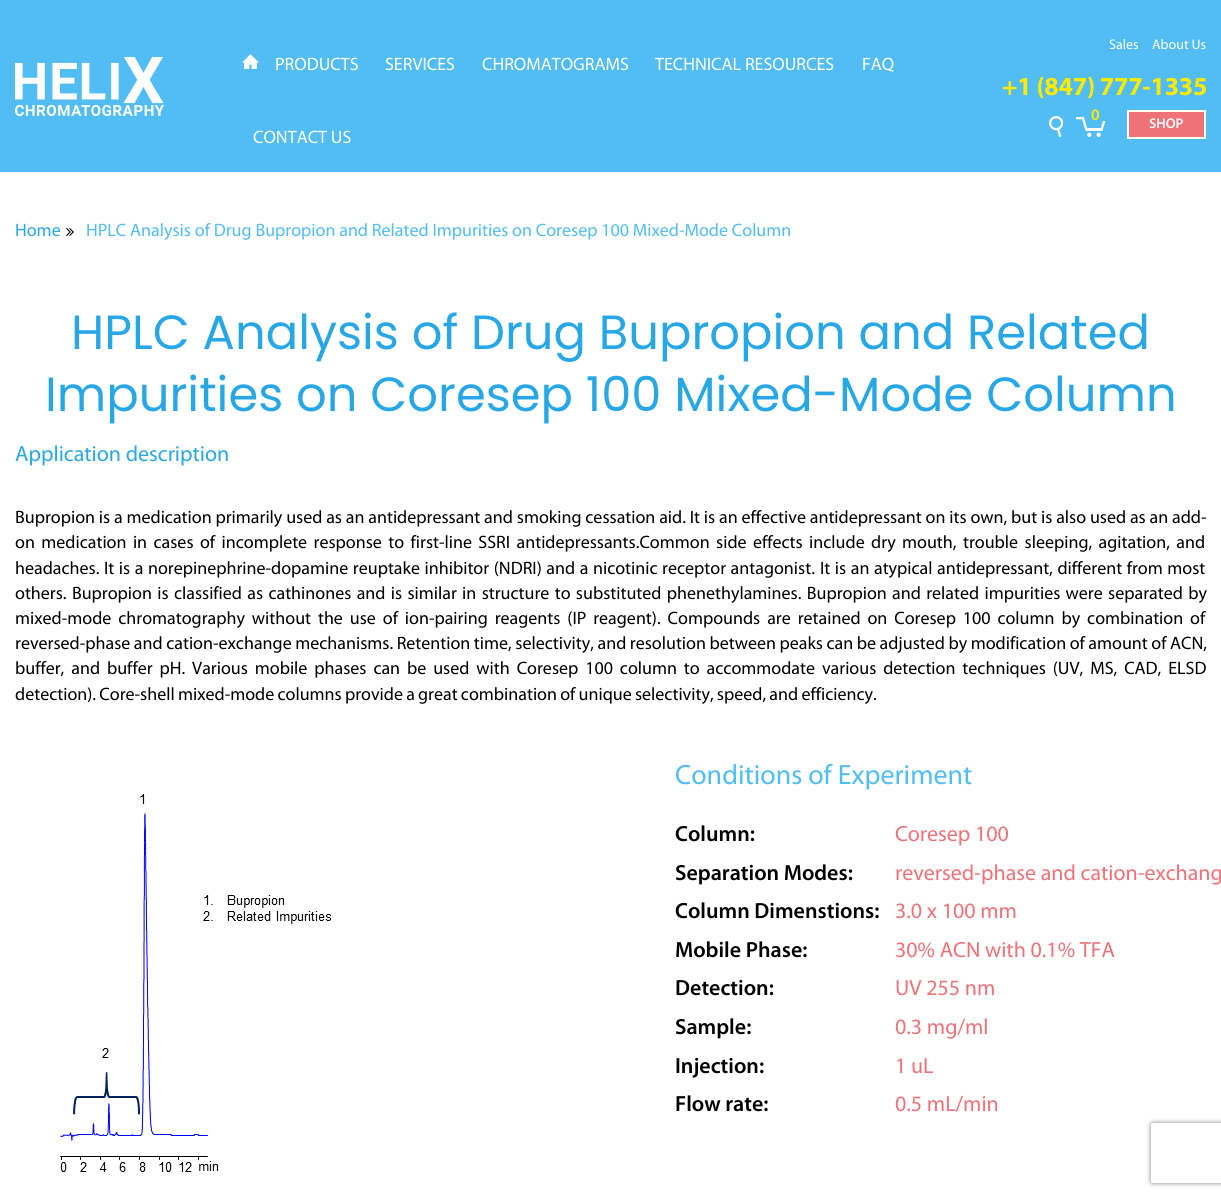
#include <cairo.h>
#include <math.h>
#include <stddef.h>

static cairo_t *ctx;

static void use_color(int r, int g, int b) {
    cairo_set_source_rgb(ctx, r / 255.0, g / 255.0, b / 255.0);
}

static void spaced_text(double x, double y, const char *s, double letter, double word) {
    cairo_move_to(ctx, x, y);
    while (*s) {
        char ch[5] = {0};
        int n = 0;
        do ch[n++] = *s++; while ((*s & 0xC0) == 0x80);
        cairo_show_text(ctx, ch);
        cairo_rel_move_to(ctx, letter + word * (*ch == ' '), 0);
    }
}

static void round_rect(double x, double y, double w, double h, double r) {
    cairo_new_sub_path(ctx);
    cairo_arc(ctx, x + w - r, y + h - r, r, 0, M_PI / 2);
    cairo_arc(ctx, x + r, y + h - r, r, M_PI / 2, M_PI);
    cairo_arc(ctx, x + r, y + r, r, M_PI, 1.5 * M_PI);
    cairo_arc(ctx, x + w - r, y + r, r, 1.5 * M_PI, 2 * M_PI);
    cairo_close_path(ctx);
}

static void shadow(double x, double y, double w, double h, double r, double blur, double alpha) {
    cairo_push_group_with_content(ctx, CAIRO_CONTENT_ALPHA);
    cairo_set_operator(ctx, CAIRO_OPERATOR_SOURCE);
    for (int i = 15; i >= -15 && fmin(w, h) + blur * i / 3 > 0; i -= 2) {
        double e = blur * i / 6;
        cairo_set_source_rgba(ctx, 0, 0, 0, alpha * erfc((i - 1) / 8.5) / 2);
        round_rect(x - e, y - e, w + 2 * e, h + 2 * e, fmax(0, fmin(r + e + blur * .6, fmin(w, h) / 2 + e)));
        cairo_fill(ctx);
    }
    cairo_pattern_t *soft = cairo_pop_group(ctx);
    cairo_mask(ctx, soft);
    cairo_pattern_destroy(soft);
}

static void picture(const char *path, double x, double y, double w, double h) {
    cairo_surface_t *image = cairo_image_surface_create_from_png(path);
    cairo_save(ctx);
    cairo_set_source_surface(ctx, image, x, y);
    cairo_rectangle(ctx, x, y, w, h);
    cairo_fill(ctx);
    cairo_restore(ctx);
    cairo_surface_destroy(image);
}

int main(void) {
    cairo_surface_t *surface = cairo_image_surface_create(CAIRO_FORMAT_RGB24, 1221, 1197);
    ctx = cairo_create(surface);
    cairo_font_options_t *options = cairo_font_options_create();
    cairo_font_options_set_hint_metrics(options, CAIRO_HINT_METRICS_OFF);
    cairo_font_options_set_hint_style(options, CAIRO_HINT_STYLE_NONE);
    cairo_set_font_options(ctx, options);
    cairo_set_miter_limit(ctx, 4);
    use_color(255, 255, 255);
    cairo_paint(ctx);
    use_color(81, 189, 242);
    cairo_rectangle(ctx, 0, 0, 1221, 172);
    cairo_fill(ctx);
    picture("img1.png", 15, 57, 149, 59);
    picture("img2.png", 242, 54, 17, 15);
    cairo_select_font_face(ctx, "Myriad", CAIRO_FONT_SLANT_NORMAL, CAIRO_FONT_WEIGHT_NORMAL);
    cairo_set_font_size(ctx, 18);
    use_color(255, 255, 255);
    cairo_move_to(ctx, 275, 70);
    cairo_show_text(ctx, "PRODUCTS");
    cairo_move_to(ctx, 385, 70);
    cairo_show_text(ctx, "SERVICES");
    cairo_move_to(ctx, 482, 70);
    cairo_show_text(ctx, "CHROMATOGRAMS");
    cairo_move_to(ctx, 655, 70);
    cairo_show_text(ctx, "TECHNICAL RESOURCES");
    cairo_move_to(ctx, 862, 70);
    cairo_show_text(ctx, "FAQ");
    cairo_move_to(ctx, 253, 143);
    cairo_show_text(ctx, "CONTACT US");
    cairo_set_font_size(ctx, 14);
    cairo_move_to(ctx, 1109, 49);
    cairo_show_text(ctx, "Sales");
    cairo_move_to(ctx, 1152, 49);
    cairo_show_text(ctx, "About Us");
    cairo_select_font_face(ctx, "Myriad", CAIRO_FONT_SLANT_NORMAL, CAIRO_FONT_WEIGHT_BOLD);
    cairo_set_font_size(ctx, 26);
    use_color(255, 234, 0);
    spaced_text(1002, 95, "+1 (847) 777-1335", -0.25, 0);
    picture("img3.png", 1049, 116, 14, 21);
    picture("img4.png", 1076, 117, 30, 20);
    cairo_select_font_face(ctx, "Myriad SemiBold", CAIRO_FONT_SLANT_NORMAL, CAIRO_FONT_WEIGHT_NORMAL);
    cairo_set_font_size(ctx, 16);
    cairo_move_to(ctx, 1091, 120);
    cairo_show_text(ctx, "0");
    use_color(239, 114, 120);
    cairo_rectangle(ctx, 1128, 111, 77, 27);
    cairo_fill_preserve(ctx);
    use_color(255, 255, 255);
    cairo_stroke(ctx);
    cairo_set_font_size(ctx, 14);
    cairo_move_to(ctx, 1149, 128);
    cairo_show_text(ctx, "SHOP");
    cairo_select_font_face(ctx, "Myriad", CAIRO_FONT_SLANT_NORMAL, CAIRO_FONT_WEIGHT_NORMAL);
    cairo_set_font_size(ctx, 18);
    use_color(40, 167, 230);
    cairo_move_to(ctx, 15, 236);
    cairo_show_text(ctx, "Home");
    picture("img5.png", 66, 228, 8, 8);
    use_color(81, 189, 242);
    cairo_move_to(ctx, 86, 236);
    cairo_show_text(ctx, "HPLC Analysis of Drug Bupropion and Related Impurities on Coresep 100 Mixed-Mode Column");
    cairo_select_font_face(ctx, "Poppins", CAIRO_FONT_SLANT_NORMAL, CAIRO_FONT_WEIGHT_NORMAL);
    cairo_set_font_size(ctx, 48);
    use_color(40, 167, 230);
    cairo_move_to(ctx, 71, 349);
    cairo_show_text(ctx, "HPLC Analysis of Drug Bupropion and Related");
    cairo_move_to(ctx, 45, 411);
    cairo_show_text(ctx, "Impurities on Coresep 100 Mixed-Mode Column");
    cairo_select_font_face(ctx, "Myriad", CAIRO_FONT_SLANT_NORMAL, CAIRO_FONT_WEIGHT_NORMAL);
    cairo_set_font_size(ctx, 22);
    cairo_move_to(ctx, 15, 461);
    cairo_show_text(ctx, "Application description");
    cairo_set_font_size(ctx, 18);
    use_color(0, 0, 0);
    cairo_move_to(ctx, 15, 523);
    cairo_show_text(ctx, "Bupropion is a medication primarily used as an antidepressant and smoking cessation aid. It is an effective antidepressant on its own, but is also used as an add-");
    spaced_text(15, 548, "on medication in cases of incomplete response to first-line SSRI antidepressants.Common side effects include dry mouth, trouble sleeping, agitation, and", 0, 2.6);
    spaced_text(15, 574, "headaches. It is a norepinephrine-dopamine reuptake inhibitor (NDRI) and a nicotinic receptor antagonist.", 0, 0.75);
    spaced_text(820, 574, "It is an atypical antidepressant, different from most", 0, 0.75);
    spaced_text(15, 599, "others. Bupropion is classified as cathinones and is similar in structure to substituted phenethylamines. Bupropion and related impurities were separated by", 0, 1.5);
    spaced_text(15, 624, "mixed-mode chromatography without the use of ion-pairing reagents (IP reagent). Compounds are retained on Coresep 100 column by combination of", 0, 3.1);
    spaced_text(15, 649, "reversed-phase and cation-exchange mechanisms. Retention time, selectivity, and resolution between peaks can be adjusted by modification of amount of ACN,", 0, -0.3);
    spaced_text(15, 674, "buffer, and buffer pH. Various mobile phases can be used with Coresep 100 column to accommodate various detection techniques (UV, MS, CAD, ELSD", 0, 3.1);
    spaced_text(15, 700, "detection). Core-shell mixed-mode columns provide a great combination of unique selectivity, speed, and efficiency.", 0, -0.6);
    picture("img6.png", 60, 794, 272, 378);
    cairo_set_font_size(ctx, 28);
    use_color(81, 189, 242);
    cairo_move_to(ctx, 675, 784);
    cairo_show_text(ctx, "Conditions of Experiment");
    cairo_select_font_face(ctx, "Myriad SemiBold", CAIRO_FONT_SLANT_NORMAL, CAIRO_FONT_WEIGHT_NORMAL);
    cairo_set_font_size(ctx, 22);
    use_color(0, 0, 0);
    cairo_move_to(ctx, 675, 841);
    cairo_show_text(ctx, "Column:");
    cairo_select_font_face(ctx, "Myriad", CAIRO_FONT_SLANT_NORMAL, CAIRO_FONT_WEIGHT_NORMAL);
    use_color(239, 114, 120);
    cairo_move_to(ctx, 895, 841);
    cairo_show_text(ctx, "Coresep 100");
    cairo_select_font_face(ctx, "Myriad SemiBold", CAIRO_FONT_SLANT_NORMAL, CAIRO_FONT_WEIGHT_NORMAL);
    use_color(0, 0, 0);
    cairo_move_to(ctx, 675, 880);
    cairo_show_text(ctx, "Separation Modes:");
    cairo_select_font_face(ctx, "Myriad", CAIRO_FONT_SLANT_NORMAL, CAIRO_FONT_WEIGHT_NORMAL);
    use_color(239, 114, 120);
    cairo_move_to(ctx, 895, 880);
    cairo_show_text(ctx, "reversed-phase and cation-exchang");
    cairo_select_font_face(ctx, "Myriad SemiBold", CAIRO_FONT_SLANT_NORMAL, CAIRO_FONT_WEIGHT_NORMAL);
    use_color(0, 0, 0);
    cairo_move_to(ctx, 675, 918);
    cairo_show_text(ctx, "Column Dimenstions:");
    cairo_select_font_face(ctx, "Myriad", CAIRO_FONT_SLANT_NORMAL, CAIRO_FONT_WEIGHT_NORMAL);
    use_color(239, 114, 120);
    cairo_move_to(ctx, 895, 918);
    cairo_show_text(ctx, "3.0 x 100 mm");
    cairo_select_font_face(ctx, "Myriad SemiBold", CAIRO_FONT_SLANT_NORMAL, CAIRO_FONT_WEIGHT_NORMAL);
    use_color(0, 0, 0);
    cairo_move_to(ctx, 675, 957);
    cairo_show_text(ctx, "Mobile Phase:");
    cairo_select_font_face(ctx, "Myriad", CAIRO_FONT_SLANT_NORMAL, CAIRO_FONT_WEIGHT_NORMAL);
    use_color(239, 114, 120);
    cairo_move_to(ctx, 895, 957);
    cairo_show_text(ctx, "30% ACN with 0.1% TFA");
    cairo_select_font_face(ctx, "Myriad SemiBold", CAIRO_FONT_SLANT_NORMAL, CAIRO_FONT_WEIGHT_NORMAL);
    use_color(0, 0, 0);
    cairo_move_to(ctx, 675, 995);
    cairo_show_text(ctx, "Detection:");
    cairo_select_font_face(ctx, "Myriad", CAIRO_FONT_SLANT_NORMAL, CAIRO_FONT_WEIGHT_NORMAL);
    use_color(239, 114, 120);
    cairo_move_to(ctx, 895, 995);
    cairo_show_text(ctx, "UV 255 nm");
    cairo_select_font_face(ctx, "Myriad SemiBold", CAIRO_FONT_SLANT_NORMAL, CAIRO_FONT_WEIGHT_NORMAL);
    use_color(0, 0, 0);
    cairo_move_to(ctx, 675, 1034);
    cairo_show_text(ctx, "Sample:");
    cairo_select_font_face(ctx, "Myriad", CAIRO_FONT_SLANT_NORMAL, CAIRO_FONT_WEIGHT_NORMAL);
    use_color(239, 114, 120);
    cairo_move_to(ctx, 895, 1034);
    cairo_show_text(ctx, "0.3 mg/ml");
    cairo_select_font_face(ctx, "Myriad SemiBold", CAIRO_FONT_SLANT_NORMAL, CAIRO_FONT_WEIGHT_NORMAL);
    use_color(0, 0, 0);
    cairo_move_to(ctx, 675, 1073);
    cairo_show_text(ctx, "Injection:");
    cairo_select_font_face(ctx, "Myriad", CAIRO_FONT_SLANT_NORMAL, CAIRO_FONT_WEIGHT_NORMAL);
    use_color(239, 114, 120);
    cairo_move_to(ctx, 895, 1073);
    cairo_show_text(ctx, "1 uL");
    cairo_select_font_face(ctx, "Myriad SemiBold", CAIRO_FONT_SLANT_NORMAL, CAIRO_FONT_WEIGHT_NORMAL);
    use_color(0, 0, 0);
    cairo_move_to(ctx, 675, 1111);
    cairo_show_text(ctx, "Flow rate:");
    cairo_select_font_face(ctx, "Myriad", CAIRO_FONT_SLANT_NORMAL, CAIRO_FONT_WEIGHT_NORMAL);
    use_color(239, 114, 120);
    cairo_move_to(ctx, 895, 1111);
    cairo_show_text(ctx, "0.5 mL/min");
    cairo_save(ctx);
    cairo_set_fill_rule(ctx, CAIRO_FILL_RULE_EVEN_ODD);
    cairo_new_path(ctx);
    cairo_move_to(ctx, 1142, 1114);
    cairo_line_to(ctx, 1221, 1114);
    cairo_line_to(ctx, 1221, 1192);
    cairo_line_to(ctx, 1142, 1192);
    cairo_close_path(ctx);
    cairo_move_to(ctx, 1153, 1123);
    cairo_line_to(ctx, 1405, 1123);
    cairo_curve_to(ctx, 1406, 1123, 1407, 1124, 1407, 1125);
    cairo_line_to(ctx, 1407, 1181);
    cairo_curve_to(ctx, 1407, 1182, 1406, 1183, 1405, 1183);
    cairo_line_to(ctx, 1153, 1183);
    cairo_curve_to(ctx, 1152, 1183, 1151, 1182, 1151, 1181);
    cairo_line_to(ctx, 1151, 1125);
    cairo_curve_to(ctx, 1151, 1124, 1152, 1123, 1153, 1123);
    cairo_close_path(ctx);
    cairo_clip(ctx);
    use_color(128, 128, 128);
    shadow(1151, 1123, 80, 60, 2, 2.5, 1);
    cairo_restore(ctx);
    cairo_surface_write_to_png(surface, "result.png");
    cairo_font_options_destroy(options);
    cairo_destroy(ctx);
    cairo_surface_destroy(surface);
    return 0;
}
